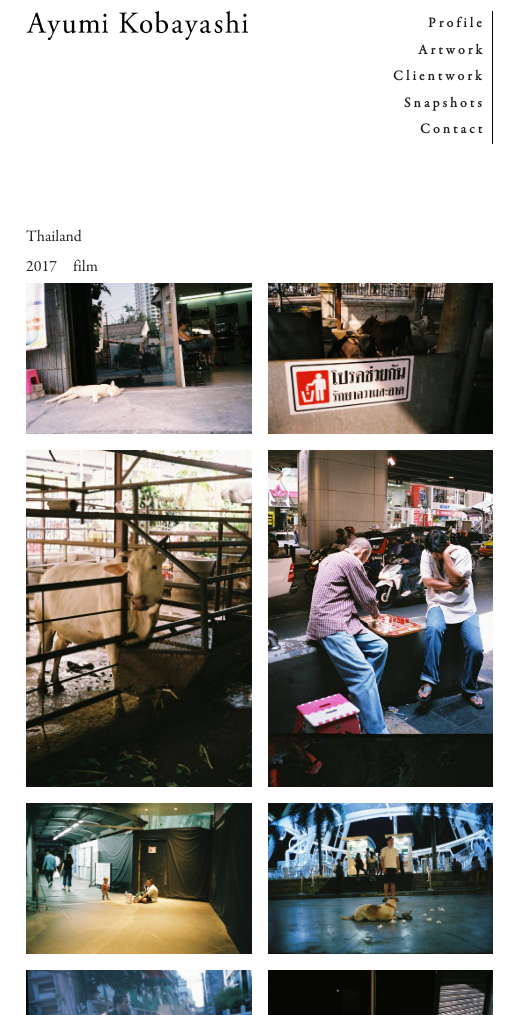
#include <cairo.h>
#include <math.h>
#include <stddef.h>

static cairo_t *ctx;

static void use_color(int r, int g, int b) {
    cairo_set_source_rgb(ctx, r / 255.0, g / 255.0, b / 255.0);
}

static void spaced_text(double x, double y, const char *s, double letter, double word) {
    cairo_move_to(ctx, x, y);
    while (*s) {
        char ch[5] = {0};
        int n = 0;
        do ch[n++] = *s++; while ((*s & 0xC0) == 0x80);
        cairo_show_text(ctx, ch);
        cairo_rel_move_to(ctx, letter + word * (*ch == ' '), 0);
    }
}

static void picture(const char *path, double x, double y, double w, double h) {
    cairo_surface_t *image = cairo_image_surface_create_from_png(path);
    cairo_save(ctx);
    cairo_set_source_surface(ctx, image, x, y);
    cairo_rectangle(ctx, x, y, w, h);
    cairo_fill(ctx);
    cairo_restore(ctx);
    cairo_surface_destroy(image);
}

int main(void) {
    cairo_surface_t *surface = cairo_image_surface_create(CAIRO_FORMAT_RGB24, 519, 1015);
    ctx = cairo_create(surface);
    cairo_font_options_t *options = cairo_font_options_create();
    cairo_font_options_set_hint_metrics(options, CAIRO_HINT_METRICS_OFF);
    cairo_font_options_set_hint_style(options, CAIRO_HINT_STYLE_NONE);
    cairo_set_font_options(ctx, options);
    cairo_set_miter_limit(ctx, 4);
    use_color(255, 255, 255);
    cairo_paint(ctx);
    picture("img1.png", 26, 11, 222, 29);
    use_color(0, 0, 0);
    cairo_rectangle(ctx, 492, 11, 1, 133);
    cairo_fill(ctx);
    cairo_select_font_face(ctx, "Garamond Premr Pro", CAIRO_FONT_SLANT_NORMAL, CAIRO_FONT_WEIGHT_BOLD);
    cairo_set_font_size(ctx, 14);
    use_color(35, 35, 35);
    spaced_text(428, 27, "Profile", 3, 0);
    spaced_text(418, 54, "Artwork", 3, 0);
    spaced_text(393, 80, "Clientwork", 3, 0);
    spaced_text(404, 107, "Snapshots", 3, 0);
    spaced_text(420, 133, "Contact", 3, 0);
    cairo_select_font_face(ctx, "Garamond Premr Pro", CAIRO_FONT_SLANT_NORMAL, CAIRO_FONT_WEIGHT_NORMAL);
    cairo_set_font_size(ctx, 16);
    cairo_move_to(ctx, 26, 241);
    cairo_show_text(ctx, "Thailand");
    cairo_move_to(ctx, 26, 271);
    cairo_show_text(ctx, "2017");
    cairo_move_to(ctx, 73, 271);
    cairo_show_text(ctx, "film");
    picture("img2.png", 26, 283, 226, 151);
    picture("img3.png", 268, 283, 225, 151);
    picture("img4.png", 26, 450, 226, 337);
    picture("img5.png", 268, 450, 225, 337);
    picture("img6.png", 26, 803, 226, 151);
    picture("img7.png", 268, 803, 225, 151);
    picture("img8.png", 26, 970, 226, 45);
    picture("img9.png", 268, 970, 225, 45);
    cairo_surface_write_to_png(surface, "result.png");
    cairo_font_options_destroy(options);
    cairo_destroy(ctx);
    cairo_surface_destroy(surface);
    return 0;
}
